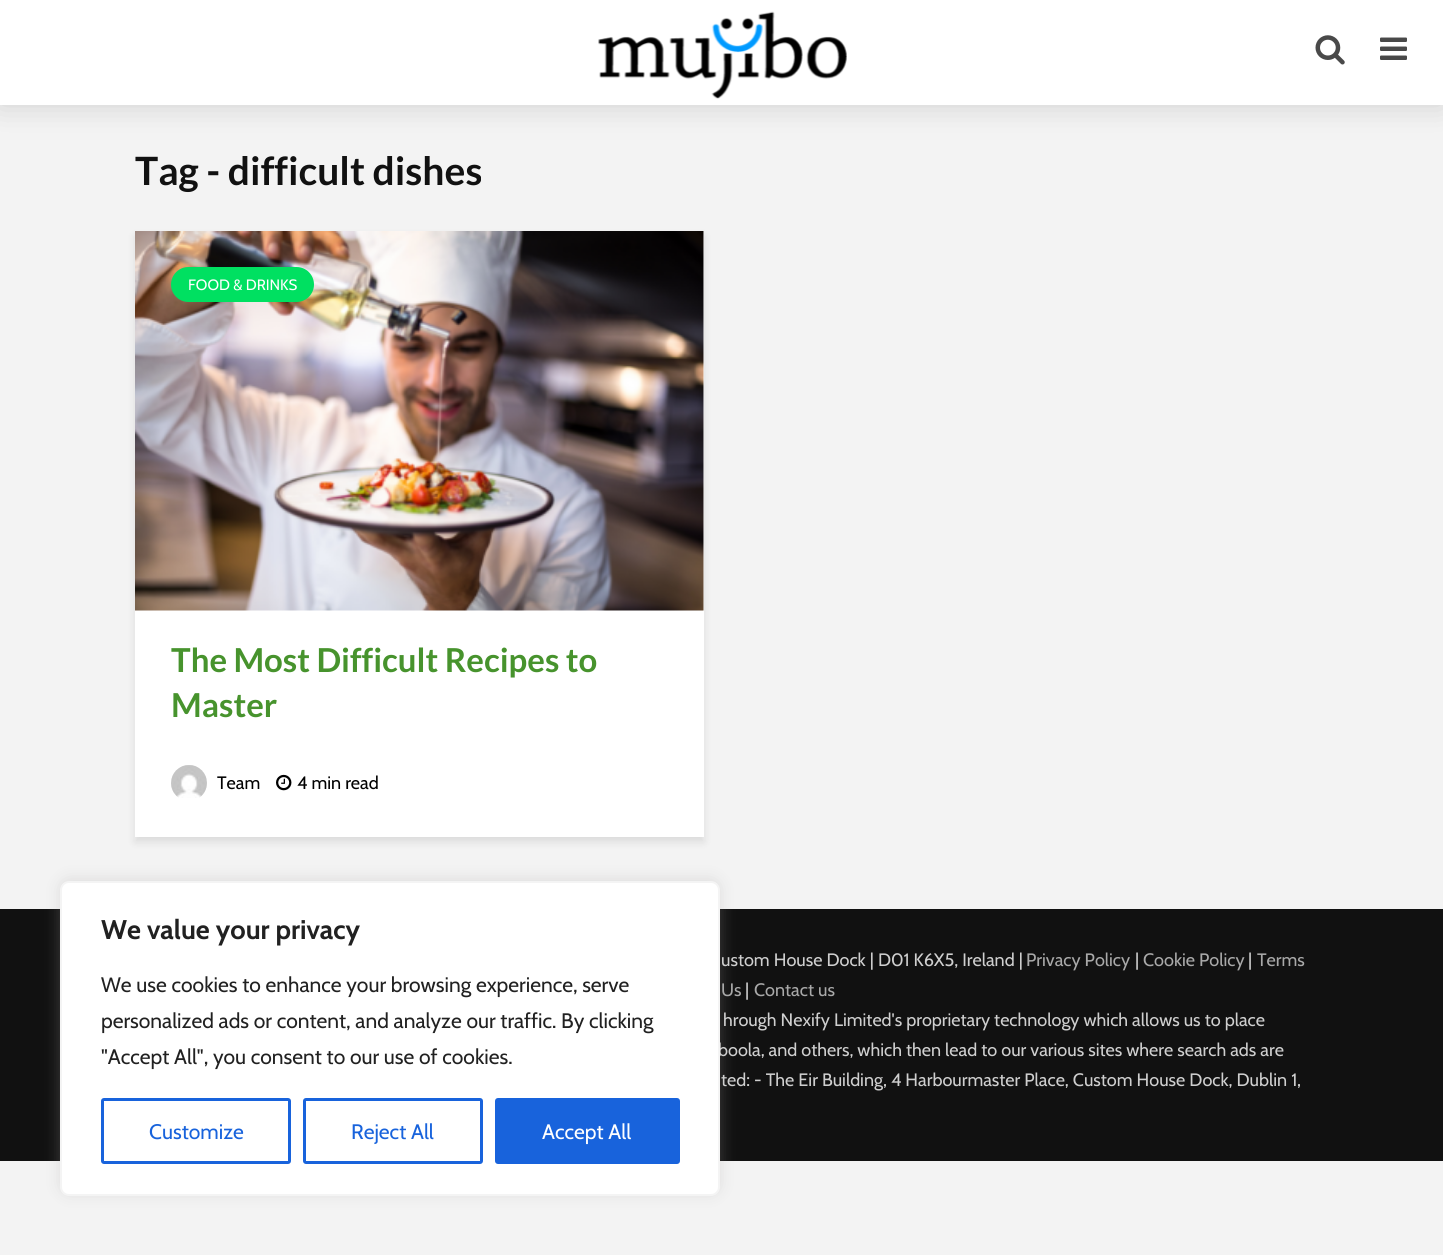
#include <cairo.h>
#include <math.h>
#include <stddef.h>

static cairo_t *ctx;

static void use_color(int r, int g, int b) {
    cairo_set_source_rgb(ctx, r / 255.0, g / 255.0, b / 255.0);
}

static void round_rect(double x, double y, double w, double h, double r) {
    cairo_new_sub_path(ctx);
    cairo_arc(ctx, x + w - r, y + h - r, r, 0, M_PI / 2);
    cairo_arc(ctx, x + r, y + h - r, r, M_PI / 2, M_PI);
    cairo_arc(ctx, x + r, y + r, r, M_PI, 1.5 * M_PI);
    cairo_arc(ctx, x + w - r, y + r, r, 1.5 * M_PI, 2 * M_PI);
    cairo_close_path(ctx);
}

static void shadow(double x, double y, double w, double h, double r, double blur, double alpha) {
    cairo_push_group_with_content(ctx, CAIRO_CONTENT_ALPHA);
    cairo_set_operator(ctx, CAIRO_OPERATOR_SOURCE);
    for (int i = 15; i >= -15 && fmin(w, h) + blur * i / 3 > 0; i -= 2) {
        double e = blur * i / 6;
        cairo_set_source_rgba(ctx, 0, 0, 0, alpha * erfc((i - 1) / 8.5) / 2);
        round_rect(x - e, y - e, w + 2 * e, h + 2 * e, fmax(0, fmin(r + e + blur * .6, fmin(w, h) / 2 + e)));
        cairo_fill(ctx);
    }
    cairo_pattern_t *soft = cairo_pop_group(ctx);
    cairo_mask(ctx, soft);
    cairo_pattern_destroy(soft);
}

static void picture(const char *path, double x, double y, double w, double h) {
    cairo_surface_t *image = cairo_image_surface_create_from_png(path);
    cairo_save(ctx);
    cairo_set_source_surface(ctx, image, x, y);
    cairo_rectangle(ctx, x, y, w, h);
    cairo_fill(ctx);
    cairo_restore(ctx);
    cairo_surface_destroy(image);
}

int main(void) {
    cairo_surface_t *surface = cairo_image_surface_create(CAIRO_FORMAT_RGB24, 1443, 1255);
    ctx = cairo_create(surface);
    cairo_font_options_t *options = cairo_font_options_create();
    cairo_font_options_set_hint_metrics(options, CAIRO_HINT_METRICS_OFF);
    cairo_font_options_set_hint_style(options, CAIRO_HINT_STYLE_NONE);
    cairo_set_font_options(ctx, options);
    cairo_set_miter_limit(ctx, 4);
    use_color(243, 243, 243);
    cairo_paint(ctx);
    use_color(0, 0, 0);
    shadow(0, 0, 1443, 105, 0, 15, 0.15);
    use_color(255, 255, 255);
    cairo_rectangle(ctx, 0, 0, 1443, 105);
    cairo_fill(ctx);
    picture("img1.png", 598, 11, 249, 88);
    picture("img2.png", 1315, 35, 30, 30);
    picture("img3.png", 1380, 37, 27, 23);
    cairo_select_font_face(ctx, "Lato", CAIRO_FONT_SLANT_NORMAL, CAIRO_FONT_WEIGHT_BOLD);
    cairo_set_font_size(ctx, 39);
    use_color(17, 17, 17);
    cairo_move_to(ctx, 135, 185);
    cairo_show_text(ctx, "Tag - difficult dishes");
    use_color(0, 1, 1);
    shadow(135, 236, 569, 606, 0, 4, 0.1);
    use_color(255, 255, 255);
    cairo_rectangle(ctx, 135, 231, 569, 606);
    cairo_fill(ctx);
    picture("img4.png", 135, 231, 569, 380);
    use_color(0, 224, 97);
    round_rect(171, 267, 143, 35, 17.5);
    cairo_fill(ctx);
    cairo_select_font_face(ctx, "Cabin", CAIRO_FONT_SLANT_NORMAL, CAIRO_FONT_WEIGHT_NORMAL);
    cairo_set_font_size(ctx, 15);
    use_color(255, 255, 255);
    cairo_move_to(ctx, 188, 290);
    cairo_show_text(ctx, "FOOD & DRINKS");
    cairo_select_font_face(ctx, "Lato", CAIRO_FONT_SLANT_NORMAL, CAIRO_FONT_WEIGHT_BOLD);
    cairo_set_font_size(ctx, 33);
    use_color(71, 147, 45);
    cairo_move_to(ctx, 171, 672);
    cairo_show_text(ctx, "The Most Difficult Recipes to");
    cairo_move_to(ctx, 171, 717);
    cairo_show_text(ctx, "Master");
    picture("img5.png", 171, 765, 36, 33);
    cairo_select_font_face(ctx, "Cabin", CAIRO_FONT_SLANT_NORMAL, CAIRO_FONT_WEIGHT_NORMAL);
    cairo_set_font_size(ctx, 18);
    use_color(0, 0, 0);
    cairo_move_to(ctx, 217, 789);
    cairo_show_text(ctx, "Team");
    picture("img6.png", 276, 774, 16, 17);
    cairo_move_to(ctx, 297, 789);
    cairo_show_text(ctx, "4 min read");
    use_color(17, 17, 17);
    cairo_rectangle(ctx, 0, 909, 1443, 252);
    cairo_fill(ctx);
    use_color(172, 171, 171);
    shadow(60, 879, 660, 315, 9, 7.5, 0.3);
    use_color(207, 207, 207);
    cairo_move_to(ctx, 718, 1056);
    cairo_show_text(ctx, "boola, and others, which then lead to our various sites where search ads are");
    use_color(255, 255, 255);
    round_rect(61, 882, 658, 313, 8);
    cairo_fill_preserve(ctx);
    use_color(244, 244, 244);
    cairo_stroke(ctx);
    cairo_select_font_face(ctx, "Cabin", CAIRO_FONT_SLANT_NORMAL, CAIRO_FONT_WEIGHT_BOLD);
    cairo_set_font_size(ctx, 27);
    use_color(33, 33, 33);
    cairo_move_to(ctx, 101, 939);
    cairo_show_text(ctx, "We value your privacy");
    cairo_select_font_face(ctx, "Cabin", CAIRO_FONT_SLANT_NORMAL, CAIRO_FONT_WEIGHT_NORMAL);
    cairo_set_font_size(ctx, 21);
    cairo_move_to(ctx, 101, 992);
    cairo_show_text(ctx, "We use cookies to enhance your browsing experience, serve");
    cairo_move_to(ctx, 101, 1028);
    cairo_show_text(ctx, "personalized ads or content, and analyze our traffic. By clicking");
    cairo_move_to(ctx, 101, 1064);
    cairo_show_text(ctx, "\"Accept All\", you consent to our use of cookies.");
    round_rect(102.5, 1099.5, 187, 63, 1.5);
    use_color(24, 99, 220);
    cairo_set_line_width(ctx, 3);
    cairo_stroke(ctx);
    cairo_move_to(ctx, 149, 1139);
    cairo_show_text(ctx, "Customize");
    round_rect(304.5, 1099.5, 177, 63, 1.5);
    cairo_stroke(ctx);
    cairo_move_to(ctx, 351, 1139);
    cairo_show_text(ctx, "Reject All");
    round_rect(496.5, 1099.5, 182, 63, 1.5);
    cairo_fill_preserve(ctx);
    cairo_stroke(ctx);
    use_color(255, 255, 255);
    cairo_move_to(ctx, 542, 1139);
    cairo_show_text(ctx, "Accept All");
    cairo_set_font_size(ctx, 18);
    use_color(207, 207, 207);
    cairo_move_to(ctx, 721, 966);
    cairo_show_text(ctx, "ustom House Dock | D01 K6X5, Ireland |");
    use_color(169, 169, 169);
    cairo_move_to(ctx, 1026, 966);
    cairo_show_text(ctx, "Privacy Policy");
    use_color(207, 207, 207);
    cairo_move_to(ctx, 1135, 966);
    cairo_show_text(ctx, "|");
    use_color(169, 169, 169);
    cairo_move_to(ctx, 1143, 966);
    cairo_show_text(ctx, "Cookie Policy");
    use_color(207, 207, 207);
    cairo_move_to(ctx, 1248, 966);
    cairo_show_text(ctx, "|");
    use_color(169, 169, 169);
    cairo_move_to(ctx, 1257, 966);
    cairo_show_text(ctx, "Terms");
    cairo_move_to(ctx, 721, 996);
    cairo_show_text(ctx, "Us");
    use_color(207, 207, 207);
    cairo_move_to(ctx, 745, 996);
    cairo_show_text(ctx, "|");
    use_color(169, 169, 169);
    cairo_move_to(ctx, 754, 996);
    cairo_show_text(ctx, "Contact us");
    use_color(207, 207, 207);
    cairo_move_to(ctx, 723, 1026);
    cairo_show_text(ctx, "hrough Nexify Limited's proprietary technology which allows us to place");
    cairo_move_to(ctx, 721, 1086);
    cairo_show_text(ctx, "ted: - The Eir Building, 4 Harbourmaster Place, Custom House Dock, Dublin 1,");
    cairo_surface_write_to_png(surface, "result.png");
    cairo_font_options_destroy(options);
    cairo_destroy(ctx);
    cairo_surface_destroy(surface);
    return 0;
}
